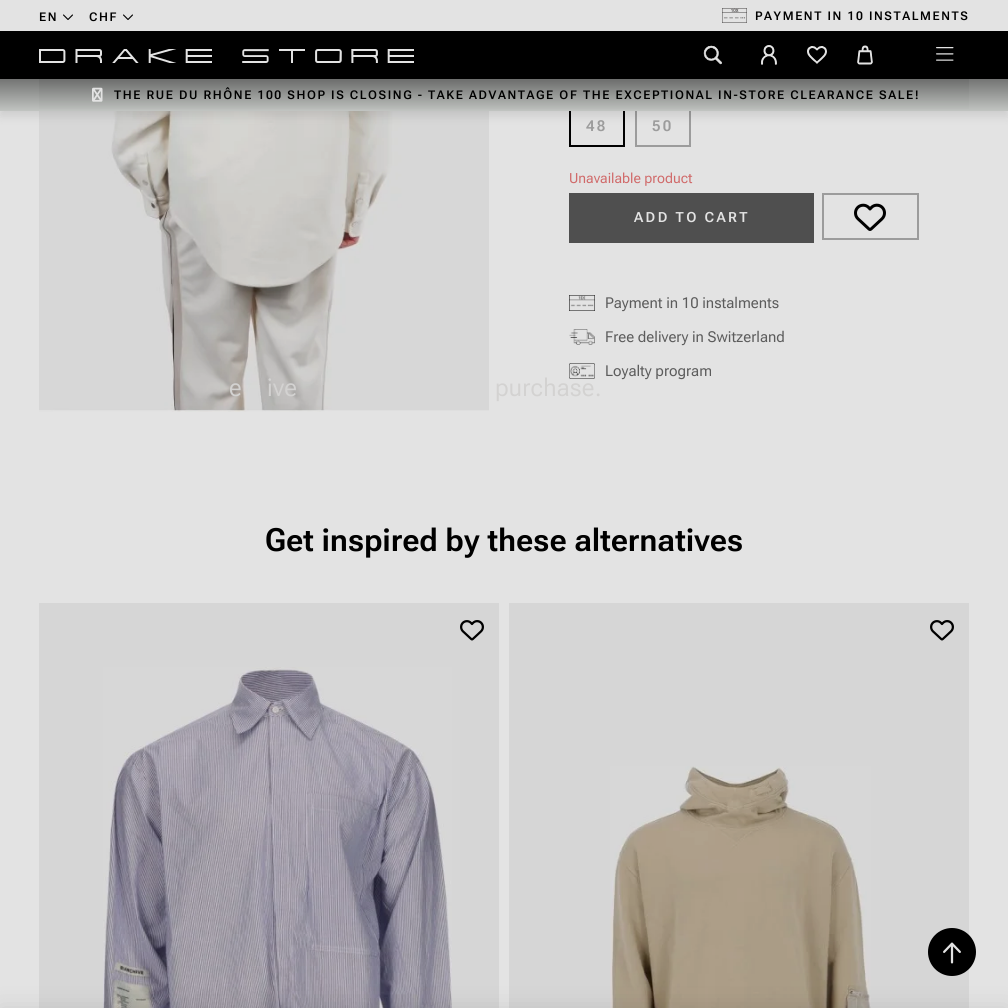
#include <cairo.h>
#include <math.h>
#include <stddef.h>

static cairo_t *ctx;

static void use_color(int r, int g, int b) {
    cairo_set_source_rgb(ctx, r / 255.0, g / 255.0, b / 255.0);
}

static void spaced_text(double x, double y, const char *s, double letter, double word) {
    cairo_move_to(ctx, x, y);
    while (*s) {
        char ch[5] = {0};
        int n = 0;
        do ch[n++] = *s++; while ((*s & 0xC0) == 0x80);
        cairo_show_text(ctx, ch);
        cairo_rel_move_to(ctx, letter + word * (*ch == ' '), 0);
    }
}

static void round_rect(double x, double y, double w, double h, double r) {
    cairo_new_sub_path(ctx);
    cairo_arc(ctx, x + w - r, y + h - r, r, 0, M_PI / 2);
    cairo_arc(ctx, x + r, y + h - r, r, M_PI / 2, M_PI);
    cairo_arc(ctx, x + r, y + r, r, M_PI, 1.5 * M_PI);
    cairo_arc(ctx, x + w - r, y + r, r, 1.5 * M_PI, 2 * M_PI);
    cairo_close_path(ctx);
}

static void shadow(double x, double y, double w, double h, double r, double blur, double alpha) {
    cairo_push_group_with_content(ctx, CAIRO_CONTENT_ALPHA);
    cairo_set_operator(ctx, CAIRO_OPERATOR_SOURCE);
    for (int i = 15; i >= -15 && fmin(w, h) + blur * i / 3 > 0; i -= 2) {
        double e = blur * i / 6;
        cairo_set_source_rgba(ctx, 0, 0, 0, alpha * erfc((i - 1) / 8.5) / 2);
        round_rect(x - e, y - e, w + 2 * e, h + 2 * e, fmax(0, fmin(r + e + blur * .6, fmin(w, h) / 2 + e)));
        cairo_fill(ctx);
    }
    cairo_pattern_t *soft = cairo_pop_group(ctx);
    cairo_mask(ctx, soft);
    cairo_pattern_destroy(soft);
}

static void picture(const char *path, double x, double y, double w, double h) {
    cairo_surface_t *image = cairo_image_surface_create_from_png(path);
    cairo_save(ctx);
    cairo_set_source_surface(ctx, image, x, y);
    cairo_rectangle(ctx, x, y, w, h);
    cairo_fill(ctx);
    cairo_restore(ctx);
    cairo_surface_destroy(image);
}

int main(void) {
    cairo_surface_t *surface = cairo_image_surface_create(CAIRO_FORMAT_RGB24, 1008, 1008);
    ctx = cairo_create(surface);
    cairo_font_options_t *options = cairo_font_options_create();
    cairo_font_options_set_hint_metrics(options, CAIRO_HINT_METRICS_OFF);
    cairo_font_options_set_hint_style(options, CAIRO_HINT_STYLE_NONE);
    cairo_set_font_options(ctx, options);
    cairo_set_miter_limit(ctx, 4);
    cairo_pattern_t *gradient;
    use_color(227, 227, 227);
    cairo_paint(ctx);
    picture("img10.png", 39, 111, 450, 301);
    cairo_rectangle(ctx, 570, 106, 54, 40);
    use_color(0, 0, 0);
    cairo_stroke(ctx);
    cairo_rectangle(ctx, 636, 106, 54, 40);
    use_color(156, 156, 156);
    cairo_stroke(ctx);
    use_color(0, 0, 0);
    shadow(0, 5, 1008, 111, 0, 5, 0.1);
    use_color(227, 227, 227);
    cairo_rectangle(ctx, 0, 0, 1008, 31);
    cairo_fill(ctx);
    cairo_select_font_face(ctx, "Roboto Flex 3 SemiBold", CAIRO_FONT_SLANT_NORMAL, CAIRO_FONT_WEIGHT_NORMAL);
    cairo_set_font_size(ctx, 12);
    use_color(0, 0, 0);
    spaced_text(39, 21, "EN", 1.6, 0);
    picture("img1.png", 63, 14, 10, 6);
    spaced_text(89, 21, "CHF", 1.6, 0);
    picture("img1.png", 123, 14, 10, 6);
    picture("img2.png", 722, 8, 25, 15);
    spaced_text(755, 20, "PAYMENT IN 10 INSTALMENTS", 1.6, 0);
    cairo_rectangle(ctx, 0, 31, 1008, 48);
    cairo_fill(ctx);
    picture("img3.png", 39, 49, 375, 14);
    picture("img4.png", 703, 45, 19, 20);
    picture("img5.png", 761, 45, 16, 20);
    picture("img6.png", 807, 46, 20, 18);
    picture("img7.png", 857, 45, 16, 20);
    picture("img8.png", 936, 47, 18, 14);
    gradient = cairo_pattern_create_linear(504, 79, 504, 111);
    cairo_pattern_add_color_stop_rgba(gradient, 0, 0.451, 0.455, 0.451, 1);
    cairo_pattern_add_color_stop_rgba(gradient, 1, 0.757, 0.769, 0.757, 1);
    cairo_set_source(ctx, gradient);
    cairo_pattern_destroy(gradient);
    cairo_rectangle(ctx, 0, 79, 1008, 32);
    cairo_fill(ctx);
    gradient = cairo_pattern_create_linear(504, 79, 504, 111);
    cairo_pattern_add_color_stop_rgba(gradient, 0, 0.42, 0.424, 0.42, 0.92);
    cairo_pattern_add_color_stop_rgba(gradient, 1, 0.749, 0.761, 0.749, 0.89);
    cairo_set_source(ctx, gradient);
    cairo_pattern_destroy(gradient);
    cairo_rectangle(ctx, 39, 79, 930, 30);
    cairo_fill(ctx);
    picture("img9.png", 92, 87, 11, 15);
    use_color(0, 0, 0);
    spaced_text(114, 99, "THE RUE DU RHÔNE 100 SHOP IS CLOSING - TAKE ADVANTAGE OF THE EXCEPTIONAL IN-STORE CLEARANCE SALE!", 1.6, 0);
    cairo_select_font_face(ctx, "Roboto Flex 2 SemiBold", CAIRO_FONT_SLANT_NORMAL, CAIRO_FONT_WEIGHT_NORMAL);
    cairo_set_font_size(ctx, 15);
    use_color(156, 156, 156);
    spaced_text(586, 131, "48", 2.4, 0);
    spaced_text(652, 131, "50", 2.4, 0);
    cairo_select_font_face(ctx, "Roboto Flex", CAIRO_FONT_SLANT_NORMAL, CAIRO_FONT_WEIGHT_NORMAL);
    cairo_set_font_size(ctx, 14);
    use_color(208, 106, 106);
    cairo_move_to(ctx, 569, 183);
    cairo_show_text(ctx, "Unavailable product");
    use_color(79, 79, 79);
    cairo_rectangle(ctx, 569, 193, 245, 50);
    cairo_fill(ctx);
    cairo_select_font_face(ctx, "Roboto Flex 2 SemiBold", CAIRO_FONT_SLANT_NORMAL, CAIRO_FONT_WEIGHT_NORMAL);
    use_color(227, 227, 227);
    spaced_text(634, 222, "ADD TO CART", 2.4, 0);
    cairo_rectangle(ctx, 823, 194, 95, 45);
    use_color(156, 156, 156);
    cairo_stroke(ctx);
    picture("img11.png", 854, 203, 32, 28);
    picture("img12.png", 569, 295, 26, 16);
    cairo_select_font_face(ctx, "Roboto Flex 2", CAIRO_FONT_SLANT_NORMAL, CAIRO_FONT_WEIGHT_NORMAL);
    cairo_set_font_size(ctx, 15);
    use_color(92, 92, 92);
    cairo_move_to(ctx, 605, 308);
    cairo_show_text(ctx, "Payment in 10 instalments");
    picture("img13.png", 569, 329, 26, 16);
    cairo_move_to(ctx, 605, 342);
    cairo_show_text(ctx, "Free delivery in Switzerland");
    picture("img14.png", 569, 363, 26, 16);
    cairo_move_to(ctx, 605, 376);
    cairo_show_text(ctx, "Loyalty program");
    cairo_select_font_face(ctx, "Roboto Flex SemiBold", CAIRO_FONT_SLANT_NORMAL, CAIRO_FONT_WEIGHT_NORMAL);
    cairo_set_font_size(ctx, 32);
    use_color(0, 0, 0);
    spaced_text(265, 551, "Get inspired by these alternatives", 0.3, 0);
    use_color(214, 214, 214);
    cairo_rectangle(ctx, 39, 603, 460, 405);
    cairo_fill(ctx);
    picture("img15.png", 103, 667, 349, 341);
    picture("img16.png", 460, 620, 24, 21);
    cairo_rectangle(ctx, 509, 603, 460, 405);
    cairo_fill(ctx);
    picture("img17.png", 610, 766, 261, 242);
    picture("img16.png", 930, 620, 24, 21);
    use_color(0, 0, 0);
    shadow(0, 1008, 1008, 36, 0, 12, 0.1);
    use_color(0, 0, 0);
    cairo_arc(ctx, 952, 952, 24, 0, 2 * M_PI);
    cairo_fill(ctx);
    picture("img18.png", 943, 942, 18, 22);
    cairo_select_font_face(ctx, "Roboto Flex 3", CAIRO_FONT_SLANT_NORMAL, CAIRO_FONT_WEIGHT_NORMAL);
    cairo_set_font_size(ctx, 25);
    use_color(211, 210, 209);
    spaced_text(229, 396, "e", 0.25, 0);
    spaced_text(267, 396, "ive", 0.25, 0);
    spaced_text(495, 396, "purchase.", 0.25, 0);
    cairo_surface_write_to_png(surface, "result.png");
    cairo_font_options_destroy(options);
    cairo_destroy(ctx);
    cairo_surface_destroy(surface);
    return 0;
}
